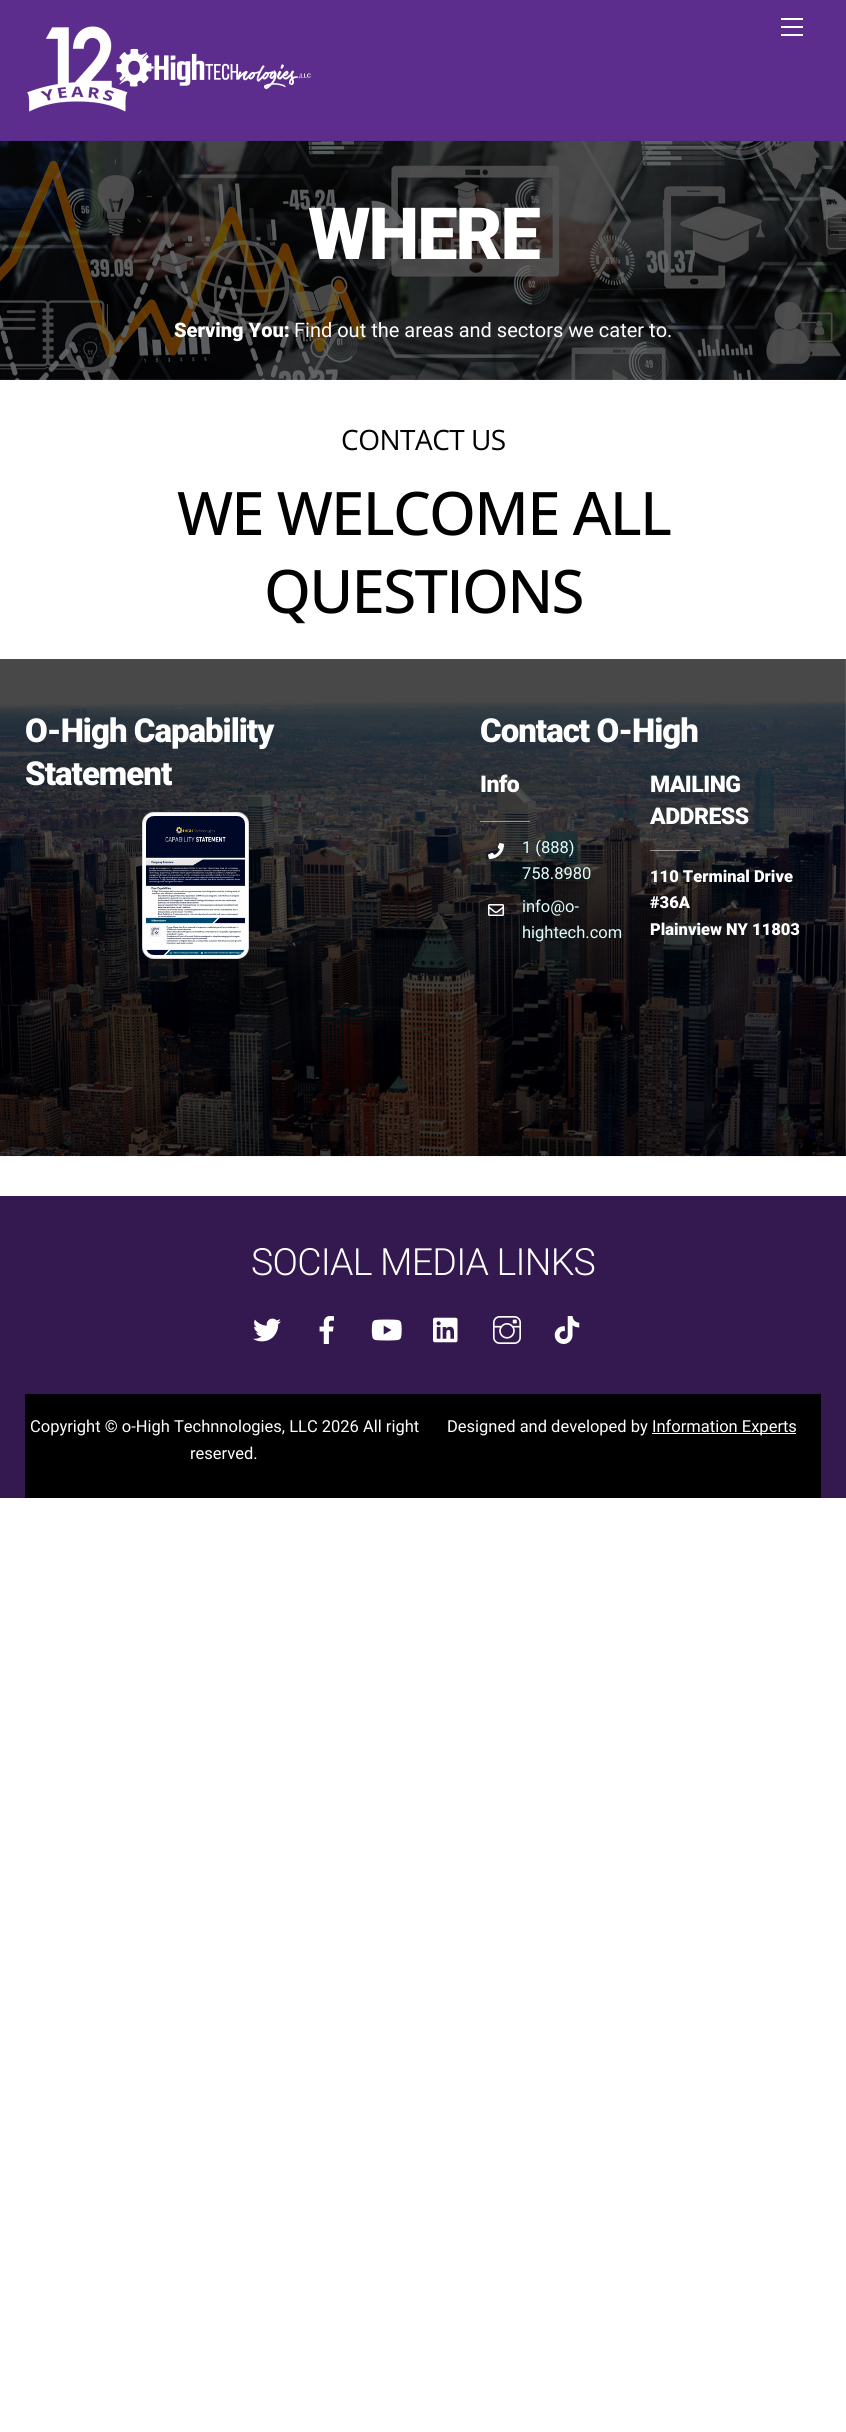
#include <cairo.h>
#include <math.h>
#include <stddef.h>

static cairo_t *ctx;

static void use_color(int r, int g, int b) {
    cairo_set_source_rgb(ctx, r / 255.0, g / 255.0, b / 255.0);
}

static void spaced_text(double x, double y, const char *s, double letter, double word) {
    cairo_move_to(ctx, x, y);
    while (*s) {
        char ch[5] = {0};
        int n = 0;
        do ch[n++] = *s++; while ((*s & 0xC0) == 0x80);
        cairo_show_text(ctx, ch);
        cairo_rel_move_to(ctx, letter + word * (*ch == ' '), 0);
    }
}

static void round_rect(double x, double y, double w, double h, double r) {
    cairo_new_sub_path(ctx);
    cairo_arc(ctx, x + w - r, y + h - r, r, 0, M_PI / 2);
    cairo_arc(ctx, x + r, y + h - r, r, M_PI / 2, M_PI);
    cairo_arc(ctx, x + r, y + r, r, M_PI, 1.5 * M_PI);
    cairo_arc(ctx, x + w - r, y + r, r, 1.5 * M_PI, 2 * M_PI);
    cairo_close_path(ctx);
}

static void picture(const char *path, double x, double y, double w, double h) {
    cairo_surface_t *image = cairo_image_surface_create_from_png(path);
    cairo_save(ctx);
    cairo_set_source_surface(ctx, image, x, y);
    cairo_rectangle(ctx, x, y, w, h);
    cairo_fill(ctx);
    cairo_restore(ctx);
    cairo_surface_destroy(image);
}

int main(void) {
    cairo_surface_t *surface = cairo_image_surface_create(CAIRO_FORMAT_RGB24, 846, 2432);
    ctx = cairo_create(surface);
    cairo_font_options_t *options = cairo_font_options_create();
    cairo_font_options_set_hint_metrics(options, CAIRO_HINT_METRICS_OFF);
    cairo_font_options_set_hint_style(options, CAIRO_HINT_STYLE_NONE);
    cairo_set_font_options(ctx, options);
    cairo_set_miter_limit(ctx, 4);
    use_color(255, 255, 255);
    cairo_paint(ctx);
    use_color(93, 45, 141);
    cairo_rectangle(ctx, 0, 0, 846, 140);
    cairo_fill(ctx);
    use_color(88, 43, 134);
    cairo_rectangle(ctx, 0, 140, 846, 1);
    cairo_fill(ctx);
    picture("img1.png", 27, 26, 284, 86);
    use_color(255, 255, 255);
    cairo_rectangle(ctx, 781, 34, 22, 2);
    cairo_fill(ctx);
    cairo_rectangle(ctx, 781, 18, 22, 2);
    cairo_fill(ctx);
    cairo_rectangle(ctx, 781, 26, 22, 2);
    cairo_fill(ctx);
    picture("img2.png", 0, 141, 846, 239);
    cairo_select_font_face(ctx, "Roboto Black", CAIRO_FONT_SLANT_NORMAL, CAIRO_FONT_WEIGHT_NORMAL);
    cairo_set_font_size(ctx, 72);
    spaced_text(308, 259, "WHERE", -2, 0);
    cairo_set_font_size(ctx, 20);
    cairo_move_to(ctx, 174, 337);
    cairo_show_text(ctx, "Serving You:");
    cairo_select_font_face(ctx, "Roboto", CAIRO_FONT_SLANT_NORMAL, CAIRO_FONT_WEIGHT_NORMAL);
    cairo_move_to(ctx, 294, 337);
    cairo_show_text(ctx, "Find out the areas and sectors we cater to.");
    cairo_select_font_face(ctx, "Open Sans", CAIRO_FONT_SLANT_NORMAL, CAIRO_FONT_WEIGHT_NORMAL);
    cairo_set_font_size(ctx, 28);
    use_color(0, 0, 0);
    spaced_text(341, 450, "CONTACT US", -0.5, 0);
    cairo_select_font_face(ctx, "Open Sans Medium", CAIRO_FONT_SLANT_NORMAL, CAIRO_FONT_WEIGHT_NORMAL);
    cairo_set_font_size(ctx, 60);
    spaced_text(177, 535, "WE WELCOME ALL", -1.75, 0);
    spaced_text(264, 613, "QUESTIONS", -1.75, 0);
    picture("img3.png", 0, 659, 846, 498);
    cairo_select_font_face(ctx, "Roboto Black", CAIRO_FONT_SLANT_NORMAL, CAIRO_FONT_WEIGHT_NORMAL);
    cairo_set_font_size(ctx, 33);
    use_color(255, 255, 255);
    spaced_text(25, 742, "O-High Capability", -1, 0);
    spaced_text(25, 785, "Statement", -1, 0);
    round_rect(142, 812, 107, 147, 12);
    cairo_fill(ctx);
    round_rect(142.5, 812.5, 106, 146, 11.5);
    cairo_set_source_rgba(ctx, 0, 0, 0, 0.15);
    cairo_set_line_width(ctx, 1);
    cairo_stroke(ctx);
    picture("img4.png", 146, 816, 99, 139);
    use_color(255, 255, 255);
    spaced_text(480, 742, "Contact O-High", -1, 0);
    cairo_set_font_size(ctx, 23);
    spaced_text(480, 792, "Info", -0.5, 0);
    cairo_set_source_rgba(ctx, 1, 1, 1, 0.5);
    cairo_rectangle(ctx, 480, 821, 50, 1);
    cairo_fill(ctx);
    picture("img5.png", 488, 843, 16, 16);
    cairo_select_font_face(ctx, "Roboto", CAIRO_FONT_SLANT_NORMAL, CAIRO_FONT_WEIGHT_NORMAL);
    cairo_set_font_size(ctx, 16.5);
    use_color(222, 255, 254);
    cairo_move_to(ctx, 522, 853);
    cairo_show_text(ctx, "1 (888)");
    cairo_move_to(ctx, 522, 879);
    cairo_show_text(ctx, "758.8980");
    picture("img6.png", 488, 904, 16, 12);
    cairo_move_to(ctx, 522, 912);
    cairo_show_text(ctx, "info@o-");
    cairo_move_to(ctx, 522, 938);
    cairo_show_text(ctx, "hightech.com");
    cairo_select_font_face(ctx, "Roboto Black", CAIRO_FONT_SLANT_NORMAL, CAIRO_FONT_WEIGHT_NORMAL);
    cairo_set_font_size(ctx, 23);
    use_color(255, 255, 255);
    spaced_text(650, 792, "MAILING", -0.5, 0);
    spaced_text(650, 824, "ADDRESS", -0.5, 0);
    cairo_set_source_rgba(ctx, 1, 1, 1, 0.5);
    cairo_rectangle(ctx, 650, 850, 50, 1);
    cairo_fill(ctx);
    cairo_set_font_size(ctx, 16.5);
    use_color(255, 255, 255);
    cairo_move_to(ctx, 650, 882);
    cairo_show_text(ctx, "110 Terminal Drive");
    cairo_move_to(ctx, 650, 908);
    cairo_show_text(ctx, "#36A");
    cairo_move_to(ctx, 650, 935);
    cairo_show_text(ctx, "Plainview NY 11803");
    use_color(52, 24, 80);
    cairo_rectangle(ctx, 0, 1196, 846, 302);
    cairo_fill(ctx);
    cairo_select_font_face(ctx, "Roboto Light", CAIRO_FONT_SLANT_NORMAL, CAIRO_FONT_WEIGHT_NORMAL);
    cairo_set_font_size(ctx, 37.5);
    use_color(255, 255, 255);
    spaced_text(251, 1275, "SOCIAL MEDIA LINKS", -0.75, 0);
    picture("img7.png", 253, 1318, 28, 24);
    picture("img8.png", 319, 1316, 15, 28);
    picture("img9.png", 371, 1319, 31, 22);
    picture("img10.png", 433, 1317, 25, 26);
    picture("img11.png", 493, 1316, 28, 28);
    picture("img12.png", 554, 1316, 26, 28);
    use_color(0, 0, 0);
    cairo_rectangle(ctx, 25, 1394, 796, 104);
    cairo_fill(ctx);
    cairo_select_font_face(ctx, "Roboto", CAIRO_FONT_SLANT_NORMAL, CAIRO_FONT_WEIGHT_NORMAL);
    cairo_set_font_size(ctx, 16.5);
    use_color(255, 255, 255);
    cairo_move_to(ctx, 30, 1432);
    cairo_show_text(ctx, "Copyright © o-High Technnologies, LLC 2026 All right");
    cairo_move_to(ctx, 190, 1459);
    cairo_show_text(ctx, "reserved.");
    cairo_move_to(ctx, 447, 1432);
    cairo_show_text(ctx, "Designed and developed by");
    cairo_rectangle(ctx, 652, 1433, 144, 1);
    cairo_fill(ctx);
    cairo_move_to(ctx, 652, 1432);
    cairo_show_text(ctx, "Information Experts");
    cairo_surface_write_to_png(surface, "result.png");
    cairo_font_options_destroy(options);
    cairo_destroy(ctx);
    cairo_surface_destroy(surface);
    return 0;
}
